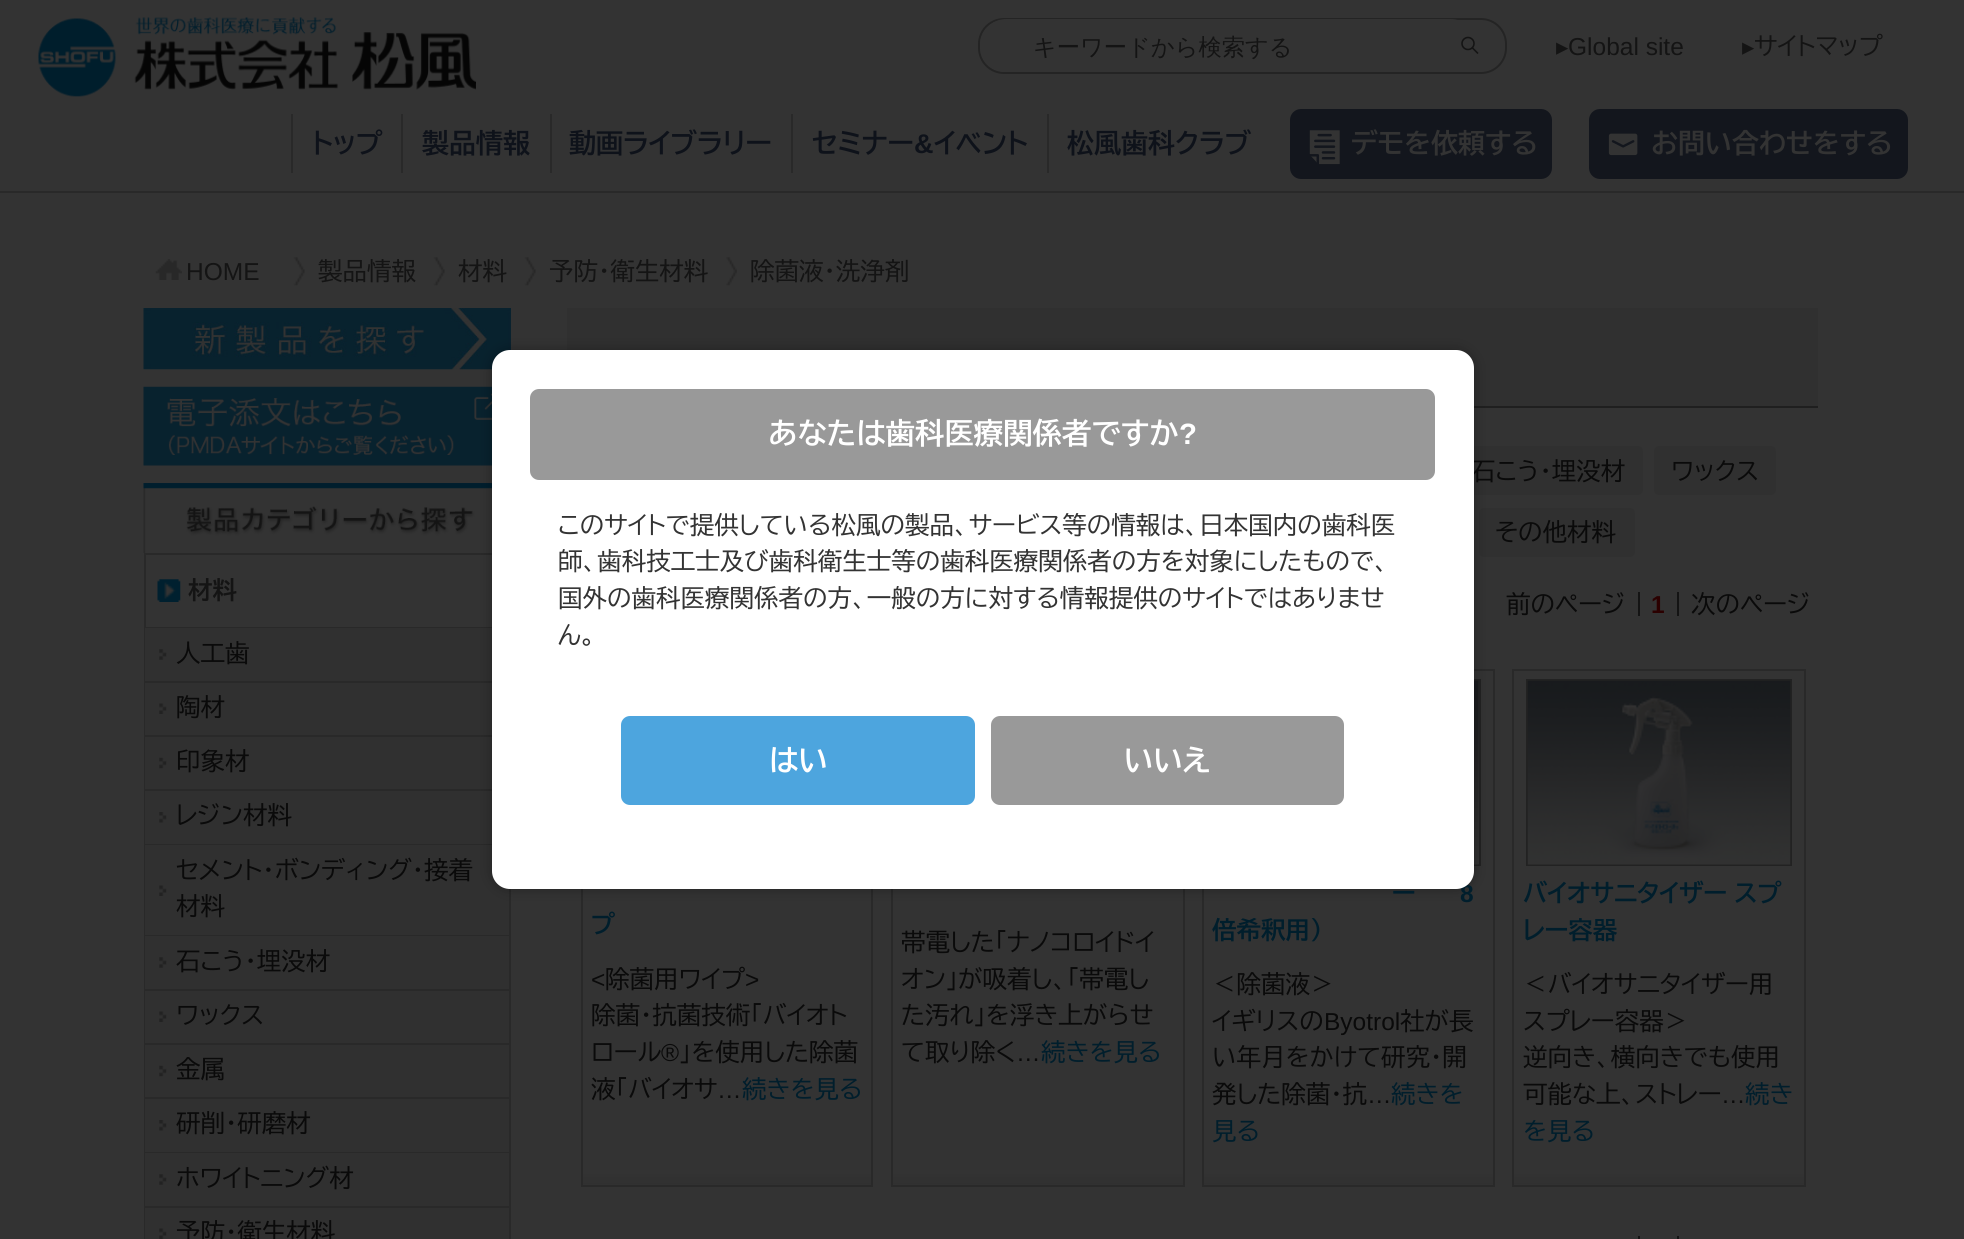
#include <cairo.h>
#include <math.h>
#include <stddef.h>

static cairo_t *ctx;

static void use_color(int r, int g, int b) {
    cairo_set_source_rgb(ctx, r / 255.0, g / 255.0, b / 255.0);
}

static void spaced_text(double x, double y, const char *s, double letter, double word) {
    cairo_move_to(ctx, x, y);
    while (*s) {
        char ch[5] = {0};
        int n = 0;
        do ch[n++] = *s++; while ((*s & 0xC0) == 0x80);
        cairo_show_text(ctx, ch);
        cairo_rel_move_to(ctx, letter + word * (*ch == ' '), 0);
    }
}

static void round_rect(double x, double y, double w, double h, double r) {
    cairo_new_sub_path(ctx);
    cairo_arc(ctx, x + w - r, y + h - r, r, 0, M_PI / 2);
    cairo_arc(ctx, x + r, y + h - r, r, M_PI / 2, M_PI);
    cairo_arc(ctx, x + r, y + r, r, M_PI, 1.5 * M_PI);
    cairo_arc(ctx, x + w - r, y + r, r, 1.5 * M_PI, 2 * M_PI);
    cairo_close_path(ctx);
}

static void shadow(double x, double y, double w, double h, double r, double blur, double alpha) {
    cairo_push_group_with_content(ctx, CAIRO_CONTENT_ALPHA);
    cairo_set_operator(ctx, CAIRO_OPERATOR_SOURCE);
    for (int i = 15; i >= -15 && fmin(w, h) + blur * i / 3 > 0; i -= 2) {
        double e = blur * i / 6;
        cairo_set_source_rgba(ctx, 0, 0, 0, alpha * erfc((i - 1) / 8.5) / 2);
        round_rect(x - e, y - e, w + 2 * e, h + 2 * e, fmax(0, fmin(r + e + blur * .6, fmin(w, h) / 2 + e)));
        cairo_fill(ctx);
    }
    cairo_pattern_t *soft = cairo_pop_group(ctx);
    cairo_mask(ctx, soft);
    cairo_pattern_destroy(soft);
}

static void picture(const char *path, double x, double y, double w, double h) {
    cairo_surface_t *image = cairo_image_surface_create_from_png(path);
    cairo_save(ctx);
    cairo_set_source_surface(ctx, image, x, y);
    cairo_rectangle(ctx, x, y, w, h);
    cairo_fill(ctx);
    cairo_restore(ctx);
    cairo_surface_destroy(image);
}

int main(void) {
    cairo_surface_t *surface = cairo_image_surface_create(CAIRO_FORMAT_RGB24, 1964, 1239);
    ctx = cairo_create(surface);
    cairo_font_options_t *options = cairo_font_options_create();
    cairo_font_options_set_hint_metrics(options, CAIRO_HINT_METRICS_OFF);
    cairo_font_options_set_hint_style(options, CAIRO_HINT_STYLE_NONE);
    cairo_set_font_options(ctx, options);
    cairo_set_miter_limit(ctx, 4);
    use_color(51, 51, 51);
    cairo_paint(ctx);
    use_color(41, 41, 41);
    cairo_rectangle(ctx, 0, 191, 1964, 2);
    cairo_fill(ctx);
    picture("img1.png", 38, 17, 438, 80);
    round_rect(979, 19, 527, 54, 25);
    use_color(36, 36, 36);
    cairo_stroke(ctx);
    use_color(51, 51, 51);
    round_rect(981, 20, 495, 51, 25.5);
    cairo_fill_preserve(ctx);
    cairo_stroke(ctx);
    cairo_select_font_face(ctx, "WenQuanYi Zen Hei Medium", CAIRO_FONT_SLANT_NORMAL, CAIRO_FONT_WEIGHT_NORMAL);
    cairo_set_font_size(ctx, 23.25);
    use_color(20, 20, 20);
    cairo_move_to(ctx, 1033, 55);
    cairo_show_text(ctx, "キーワードから検索する");
    cairo_new_path(ctx);
    cairo_arc(ctx, 1468, 43.5, 6, 0, 2 * M_PI);
    cairo_set_line_width(ctx, 1.6);
    cairo_stroke(ctx);
    cairo_new_path(ctx);
    cairo_move_to(ctx, 1472, 47.5);
    cairo_line_to(ctx, 1478, 53.5);
    cairo_stroke(ctx);
    cairo_select_font_face(ctx, "DejaVu Sans", CAIRO_FONT_SLANT_NORMAL, CAIRO_FONT_WEIGHT_NORMAL);
    cairo_set_font_size(ctx, 24.5);
    cairo_move_to(ctx, 1556, 55);
    cairo_show_text(ctx, "▸");
    cairo_select_font_face(ctx, "Liberation Sans", CAIRO_FONT_SLANT_NORMAL, CAIRO_FONT_WEIGHT_NORMAL);
    cairo_move_to(ctx, 1568, 55);
    cairo_show_text(ctx, "Global site");
    cairo_select_font_face(ctx, "DejaVu Sans", CAIRO_FONT_SLANT_NORMAL, CAIRO_FONT_WEIGHT_NORMAL);
    cairo_move_to(ctx, 1742, 55);
    cairo_show_text(ctx, "▸");
    cairo_select_font_face(ctx, "BIZ UDPGothic", CAIRO_FONT_SLANT_NORMAL, CAIRO_FONT_WEIGHT_NORMAL);
    cairo_move_to(ctx, 1754, 55);
    cairo_show_text(ctx, "サイトマップ");
    use_color(41, 41, 41);
    cairo_rectangle(ctx, 291, 114, 2, 59);
    cairo_fill(ctx);
    cairo_select_font_face(ctx, "BIZ UDPGothic", CAIRO_FONT_SLANT_NORMAL, CAIRO_FONT_WEIGHT_BOLD);
    cairo_set_font_size(ctx, 27);
    use_color(14, 18, 26);
    cairo_move_to(ctx, 312, 153);
    cairo_show_text(ctx, "トップ");
    use_color(41, 41, 41);
    cairo_rectangle(ctx, 401, 114, 2, 59);
    cairo_fill(ctx);
    use_color(14, 18, 26);
    cairo_move_to(ctx, 422, 153);
    cairo_show_text(ctx, "製品情報");
    use_color(41, 41, 41);
    cairo_rectangle(ctx, 550, 114, 2, 59);
    cairo_fill(ctx);
    use_color(14, 18, 26);
    cairo_move_to(ctx, 569, 153);
    cairo_show_text(ctx, "動画ライブラリー");
    use_color(41, 41, 41);
    cairo_rectangle(ctx, 791, 114, 2, 59);
    cairo_fill(ctx);
    use_color(14, 18, 26);
    cairo_move_to(ctx, 812, 153);
    cairo_show_text(ctx, "セミナー");
    cairo_select_font_face(ctx, "Liberation Sans", CAIRO_FONT_SLANT_NORMAL, CAIRO_FONT_WEIGHT_BOLD);
    cairo_move_to(ctx, 914, 153);
    cairo_show_text(ctx, "&");
    cairo_select_font_face(ctx, "BIZ UDPGothic", CAIRO_FONT_SLANT_NORMAL, CAIRO_FONT_WEIGHT_BOLD);
    cairo_move_to(ctx, 934, 153);
    cairo_show_text(ctx, "イベント");
    use_color(41, 41, 41);
    cairo_rectangle(ctx, 1047, 114, 2, 59);
    cairo_fill(ctx);
    use_color(14, 18, 26);
    cairo_move_to(ctx, 1067, 153);
    cairo_show_text(ctx, "松風歯科クラブ");
    use_color(19, 22, 29);
    round_rect(1290, 109, 262, 70, 11);
    cairo_fill(ctx);
    picture("img2.png", 1309, 130, 31, 35);
    use_color(51, 51, 51);
    cairo_move_to(ctx, 1351, 153);
    cairo_show_text(ctx, "デモを依頼する");
    use_color(19, 22, 29);
    round_rect(1589, 109, 319, 70, 11);
    cairo_fill(ctx);
    picture("img3.png", 1608, 133, 30, 23);
    use_color(51, 51, 51);
    cairo_move_to(ctx, 1651, 153);
    cairo_show_text(ctx, "お問い合わせをする");
    picture("img4.png", 155, 259, 27, 21);
    cairo_select_font_face(ctx, "Liberation Sans", CAIRO_FONT_SLANT_NORMAL, CAIRO_FONT_WEIGHT_NORMAL);
    cairo_set_font_size(ctx, 24.5);
    use_color(20, 20, 20);
    cairo_move_to(ctx, 186, 280);
    cairo_show_text(ctx, "HOME");
    picture("img5.png", 293, 257, 12, 29);
    cairo_select_font_face(ctx, "BIZ UDPGothic", CAIRO_FONT_SLANT_NORMAL, CAIRO_FONT_WEIGHT_NORMAL);
    cairo_move_to(ctx, 318, 280);
    cairo_show_text(ctx, "製品情報");
    picture("img5.png", 433, 257, 12, 29);
    cairo_move_to(ctx, 458, 280);
    cairo_show_text(ctx, "材料");
    picture("img6.png", 524, 257, 12, 29);
    cairo_move_to(ctx, 549, 280);
    cairo_show_text(ctx, "予防・衛生材料");
    picture("img7.png", 726, 257, 11, 29);
    cairo_move_to(ctx, 750, 280);
    cairo_show_text(ctx, "除菌液・洗浄剤");
    picture("img8.png", 143, 308, 368, 62);
    picture("img9.png", 143, 386, 349, 80);
    picture("img10.png", 143, 483, 349, 70);
    use_color(41, 41, 41);
    cairo_rectangle(ctx, 144, 553, 348, 2);
    cairo_fill(ctx);
    cairo_rectangle(ctx, 509, 888, 2, 351);
    cairo_fill(ctx);
    cairo_rectangle(ctx, 144, 553, 2, 686);
    cairo_fill(ctx);
    cairo_rectangle(ctx, 145, 627, 347, 1);
    cairo_fill(ctx);
    use_color(48, 48, 48);
    cairo_rectangle(ctx, 145, 628, 347, 53);
    cairo_fill(ctx);
    use_color(41, 41, 41);
    cairo_rectangle(ctx, 145, 681, 347, 2);
    cairo_fill(ctx);
    use_color(48, 48, 48);
    cairo_rectangle(ctx, 145, 683, 347, 52);
    cairo_fill(ctx);
    use_color(41, 41, 41);
    cairo_rectangle(ctx, 145, 735, 347, 2);
    cairo_fill(ctx);
    use_color(48, 48, 48);
    cairo_rectangle(ctx, 145, 737, 347, 52);
    cairo_fill(ctx);
    use_color(41, 41, 41);
    cairo_rectangle(ctx, 145, 789, 347, 2);
    cairo_fill(ctx);
    use_color(48, 48, 48);
    cairo_rectangle(ctx, 145, 791, 347, 53);
    cairo_fill(ctx);
    use_color(41, 41, 41);
    cairo_rectangle(ctx, 145, 844, 347, 1);
    cairo_fill(ctx);
    use_color(48, 48, 48);
    cairo_rectangle(ctx, 145, 845, 364, 90);
    cairo_fill(ctx);
    cairo_rectangle(ctx, 567, 308, 1251, 98);
    cairo_fill(ctx);
    use_color(31, 31, 31);
    cairo_rectangle(ctx, 1474, 406, 344, 2);
    cairo_fill(ctx);
    use_color(48, 48, 48);
    round_rect(1453, 446, 190, 49, 5);
    cairo_fill(ctx);
    round_rect(1479, 508, 156, 49, 5);
    cairo_fill(ctx);
    picture("img16.png", 583, 1174, 288, 11);
    cairo_rectangle(ctx, 582, 670, 290, 516);
    use_color(41, 41, 41);
    cairo_set_line_width(ctx, 2);
    cairo_stroke(ctx);
    picture("img17.png", 893, 1174, 290, 11);
    cairo_rectangle(ctx, 892, 670, 292, 516);
    cairo_stroke(ctx);
    picture("img18.png", 1204, 1174, 289, 11);
    cairo_rectangle(ctx, 1203, 670, 291, 516);
    cairo_stroke(ctx);
    cairo_rectangle(ctx, 1216, 680, 264, 185);
    use_color(34, 34, 34);
    cairo_stroke(ctx);
    picture("img19.png", 1474, 680, 5, 185);
    use_color(0, 0, 0);
    shadow(492, 350, 982, 539, 18, 7, 0.3);
    use_color(10, 10, 10);
    cairo_move_to(ctx, 1471, 480);
    cairo_show_text(ctx, "石こう・埋没材");
    cairo_select_font_face(ctx, "Liberation Sans", CAIRO_FONT_SLANT_NORMAL, CAIRO_FONT_WEIGHT_BOLD);
    use_color(0, 30, 44);
    cairo_move_to(ctx, 1460, 902);
    cairo_show_text(ctx, "8");
    use_color(255, 255, 255);
    round_rect(492, 350, 982, 539, 18);
    cairo_fill(ctx);
    use_color(153, 153, 153);
    round_rect(530, 389, 905, 91, 9);
    cairo_fill(ctx);
    cairo_select_font_face(ctx, "BIZ UDPGothic", CAIRO_FONT_SLANT_NORMAL, CAIRO_FONT_WEIGHT_BOLD);
    cairo_set_font_size(ctx, 29.4);
    use_color(255, 255, 255);
    cairo_move_to(ctx, 768, 444);
    cairo_show_text(ctx, "あなたは歯科医療関係者ですか");
    cairo_select_font_face(ctx, "Liberation Sans", CAIRO_FONT_SLANT_NORMAL, CAIRO_FONT_WEIGHT_BOLD);
    cairo_move_to(ctx, 1179, 444);
    cairo_show_text(ctx, "?");
    cairo_select_font_face(ctx, "BIZ UDPGothic", CAIRO_FONT_SLANT_NORMAL, CAIRO_FONT_WEIGHT_NORMAL);
    cairo_set_font_size(ctx, 24.5);
    use_color(51, 51, 51);
    cairo_move_to(ctx, 558, 534);
    cairo_show_text(ctx, "このサイトで提供している松風の製品、サービス等の情報は、日本国内の歯科医");
    cairo_move_to(ctx, 558, 570);
    cairo_show_text(ctx, "師、歯科技工士及び歯科衛生士等の歯科医療関係者の方を対象にしたもので、");
    cairo_move_to(ctx, 558, 607);
    cairo_show_text(ctx, "国外の歯科医療関係者の方、一般の方に対する情報提供のサイトではありませ");
    cairo_move_to(ctx, 558, 644);
    cairo_show_text(ctx, "ん。");
    use_color(77, 165, 222);
    round_rect(621, 716, 354, 89, 9);
    cairo_fill(ctx);
    cairo_select_font_face(ctx, "BIZ UDPGothic", CAIRO_FONT_SLANT_NORMAL, CAIRO_FONT_WEIGHT_BOLD);
    cairo_set_font_size(ctx, 29.4);
    use_color(255, 255, 255);
    cairo_move_to(ctx, 769, 771);
    cairo_show_text(ctx, "はい");
    use_color(153, 153, 153);
    round_rect(991, 716, 353, 89, 9);
    cairo_fill(ctx);
    use_color(255, 255, 255);
    cairo_move_to(ctx, 1124, 771);
    cairo_show_text(ctx, "いいえ");
    picture("img11.png", 157, 579, 24, 23);
    cairo_set_font_size(ctx, 24.5);
    use_color(20, 20, 20);
    cairo_move_to(ctx, 188, 599);
    cairo_show_text(ctx, "材料");
    picture("img12.png", 159, 649, 8, 11);
    cairo_select_font_face(ctx, "BIZ UDPGothic", CAIRO_FONT_SLANT_NORMAL, CAIRO_FONT_WEIGHT_NORMAL);
    use_color(10, 10, 10);
    cairo_move_to(ctx, 176, 662);
    cairo_show_text(ctx, "人工歯");
    picture("img13.png", 159, 703, 8, 11);
    cairo_move_to(ctx, 176, 716);
    cairo_show_text(ctx, "陶材");
    picture("img14.png", 159, 757, 8, 12);
    cairo_move_to(ctx, 176, 770);
    cairo_show_text(ctx, "印象材");
    picture("img15.png", 159, 812, 8, 11);
    cairo_move_to(ctx, 176, 824);
    cairo_show_text(ctx, "レジン材料");
    picture("img13.png", 159, 885, 8, 11);
    use_color(41, 41, 41);
    cairo_rectangle(ctx, 145, 935, 364, 1);
    cairo_fill(ctx);
    use_color(10, 10, 10);
    cairo_move_to(ctx, 176, 879);
    cairo_show_text(ctx, "セメント・ボンディング・接着");
    cairo_move_to(ctx, 176, 915);
    cairo_show_text(ctx, "材料");
    use_color(48, 48, 48);
    cairo_rectangle(ctx, 145, 936, 364, 53);
    cairo_fill(ctx);
    picture("img12.png", 159, 957, 8, 11);
    use_color(41, 41, 41);
    cairo_rectangle(ctx, 145, 989, 364, 2);
    cairo_fill(ctx);
    use_color(10, 10, 10);
    cairo_move_to(ctx, 176, 970);
    cairo_show_text(ctx, "石こう・埋没材");
    use_color(48, 48, 48);
    cairo_rectangle(ctx, 145, 991, 364, 52);
    cairo_fill(ctx);
    picture("img13.png", 159, 1011, 8, 11);
    use_color(41, 41, 41);
    cairo_rectangle(ctx, 145, 1043, 364, 2);
    cairo_fill(ctx);
    use_color(10, 10, 10);
    cairo_move_to(ctx, 176, 1024);
    cairo_show_text(ctx, "ワックス");
    use_color(48, 48, 48);
    cairo_rectangle(ctx, 145, 1045, 364, 52);
    cairo_fill(ctx);
    picture("img14.png", 159, 1065, 8, 12);
    use_color(41, 41, 41);
    cairo_rectangle(ctx, 145, 1097, 364, 2);
    cairo_fill(ctx);
    use_color(10, 10, 10);
    cairo_move_to(ctx, 176, 1078);
    cairo_show_text(ctx, "金属");
    use_color(48, 48, 48);
    cairo_rectangle(ctx, 145, 1099, 364, 53);
    cairo_fill(ctx);
    picture("img15.png", 159, 1120, 8, 11);
    use_color(41, 41, 41);
    cairo_rectangle(ctx, 145, 1152, 364, 1);
    cairo_fill(ctx);
    use_color(10, 10, 10);
    cairo_move_to(ctx, 176, 1132);
    cairo_show_text(ctx, "研削・研磨材");
    use_color(48, 48, 48);
    cairo_rectangle(ctx, 145, 1153, 364, 53);
    cairo_fill(ctx);
    picture("img12.png", 159, 1174, 8, 11);
    use_color(41, 41, 41);
    cairo_rectangle(ctx, 145, 1206, 364, 2);
    cairo_fill(ctx);
    use_color(10, 10, 10);
    cairo_move_to(ctx, 176, 1187);
    cairo_show_text(ctx, "ホワイトニング材");
    use_color(48, 48, 48);
    cairo_rectangle(ctx, 145, 1208, 364, 31);
    cairo_fill(ctx);
    picture("img13.png", 159, 1228, 8, 11);
    use_color(10, 10, 10);
    cairo_move_to(ctx, 176, 1241);
    cairo_show_text(ctx, "予防・衛生材料");
    use_color(48, 48, 48);
    round_rect(1654, 446, 122, 49, 5);
    cairo_fill(ctx);
    use_color(10, 10, 10);
    cairo_move_to(ctx, 1671, 480);
    cairo_show_text(ctx, "ワックス");
    cairo_move_to(ctx, 1495, 541);
    cairo_show_text(ctx, "その他材料");
    use_color(20, 20, 20);
    cairo_rectangle(ctx, 1638, 592, 2, 24);
    cairo_fill(ctx);
    use_color(10, 10, 10);
    cairo_move_to(ctx, 1506, 613);
    cairo_show_text(ctx, "前のページ");
    use_color(20, 20, 20);
    cairo_rectangle(ctx, 1677, 592, 2, 24);
    cairo_fill(ctx);
    cairo_select_font_face(ctx, "Liberation Sans", CAIRO_FONT_SLANT_NORMAL, CAIRO_FONT_WEIGHT_BOLD);
    use_color(43, 0, 0);
    cairo_move_to(ctx, 1651, 613);
    cairo_show_text(ctx, "1");
    cairo_select_font_face(ctx, "BIZ UDPGothic", CAIRO_FONT_SLANT_NORMAL, CAIRO_FONT_WEIGHT_NORMAL);
    use_color(10, 10, 10);
    cairo_move_to(ctx, 1691, 613);
    cairo_show_text(ctx, "次のページ");
    cairo_select_font_face(ctx, "BIZ UDPGothic", CAIRO_FONT_SLANT_NORMAL, CAIRO_FONT_WEIGHT_BOLD);
    use_color(0, 30, 44);
    cairo_move_to(ctx, 591, 933);
    cairo_show_text(ctx, "プ");
    cairo_select_font_face(ctx, "Liberation Sans", CAIRO_FONT_SLANT_NORMAL, CAIRO_FONT_WEIGHT_NORMAL);
    use_color(10, 10, 10);
    cairo_move_to(ctx, 591, 988);
    cairo_show_text(ctx, "<");
    cairo_select_font_face(ctx, "BIZ UDPGothic", CAIRO_FONT_SLANT_NORMAL, CAIRO_FONT_WEIGHT_NORMAL);
    cairo_move_to(ctx, 605, 988);
    cairo_show_text(ctx, "除菌用ワイプ");
    cairo_select_font_face(ctx, "Liberation Sans", CAIRO_FONT_SLANT_NORMAL, CAIRO_FONT_WEIGHT_NORMAL);
    cairo_move_to(ctx, 745, 988);
    cairo_show_text(ctx, ">");
    cairo_select_font_face(ctx, "BIZ UDPGothic", CAIRO_FONT_SLANT_NORMAL, CAIRO_FONT_WEIGHT_NORMAL);
    cairo_move_to(ctx, 591, 1024);
    cairo_show_text(ctx, "除菌・抗菌技術「バイオト");
    cairo_move_to(ctx, 591, 1061);
    cairo_show_text(ctx, "ロール");
    cairo_select_font_face(ctx, "Liberation Sans", CAIRO_FONT_SLANT_NORMAL, CAIRO_FONT_WEIGHT_NORMAL);
    cairo_move_to(ctx, 661, 1061);
    cairo_show_text(ctx, "®");
    cairo_select_font_face(ctx, "BIZ UDPGothic", CAIRO_FONT_SLANT_NORMAL, CAIRO_FONT_WEIGHT_NORMAL);
    cairo_move_to(ctx, 679, 1061);
    cairo_show_text(ctx, "」を使用した除菌");
    cairo_move_to(ctx, 591, 1098);
    cairo_show_text(ctx, "液「バイオサ");
    cairo_select_font_face(ctx, "Liberation Sans", CAIRO_FONT_SLANT_NORMAL, CAIRO_FONT_WEIGHT_NORMAL);
    cairo_move_to(ctx, 717, 1098);
    cairo_show_text(ctx, "…");
    cairo_select_font_face(ctx, "BIZ UDPGothic", CAIRO_FONT_SLANT_NORMAL, CAIRO_FONT_WEIGHT_NORMAL);
    use_color(0, 30, 44);
    cairo_move_to(ctx, 742, 1098);
    cairo_show_text(ctx, "続きを見る");
    use_color(10, 10, 10);
    cairo_move_to(ctx, 901, 951);
    cairo_show_text(ctx, "帯電した「ナノコロイドイ");
    cairo_move_to(ctx, 901, 988);
    cairo_show_text(ctx, "オン」が吸着し、「帯電し");
    cairo_move_to(ctx, 901, 1024);
    cairo_show_text(ctx, "た汚れ」を浮き上がらせ");
    cairo_move_to(ctx, 901, 1061);
    cairo_show_text(ctx, "て取り除く");
    cairo_select_font_face(ctx, "Liberation Sans", CAIRO_FONT_SLANT_NORMAL, CAIRO_FONT_WEIGHT_NORMAL);
    cairo_move_to(ctx, 1016, 1061);
    cairo_show_text(ctx, "…");
    cairo_select_font_face(ctx, "BIZ UDPGothic", CAIRO_FONT_SLANT_NORMAL, CAIRO_FONT_WEIGHT_NORMAL);
    use_color(0, 30, 44);
    cairo_move_to(ctx, 1041, 1061);
    cairo_show_text(ctx, "続きを見る");
    cairo_select_font_face(ctx, "BIZ UDPGothic", CAIRO_FONT_SLANT_NORMAL, CAIRO_FONT_WEIGHT_BOLD);
    spaced_text(1392, 902, "ー", 0, -1);
    cairo_move_to(ctx, 1212, 939);
    cairo_show_text(ctx, "倍希釈用）");
    cairo_select_font_face(ctx, "BIZ UDPGothic", CAIRO_FONT_SLANT_NORMAL, CAIRO_FONT_WEIGHT_NORMAL);
    use_color(10, 10, 10);
    cairo_move_to(ctx, 1212, 993);
    cairo_show_text(ctx, "＜除菌液＞");
    cairo_move_to(ctx, 1212, 1030);
    cairo_show_text(ctx, "イギリスの");
    cairo_select_font_face(ctx, "Liberation Sans", CAIRO_FONT_SLANT_NORMAL, CAIRO_FONT_WEIGHT_NORMAL);
    cairo_move_to(ctx, 1324, 1030);
    cairo_show_text(ctx, "Byotrol");
    cairo_select_font_face(ctx, "BIZ UDPGothic", CAIRO_FONT_SLANT_NORMAL, CAIRO_FONT_WEIGHT_NORMAL);
    cairo_move_to(ctx, 1400, 1030);
    cairo_show_text(ctx, "社が長");
    cairo_move_to(ctx, 1212, 1066);
    cairo_show_text(ctx, "い年月をかけて研究･開");
    cairo_move_to(ctx, 1212, 1103);
    cairo_show_text(ctx, "発した除菌･抗");
    cairo_select_font_face(ctx, "Liberation Sans", CAIRO_FONT_SLANT_NORMAL, CAIRO_FONT_WEIGHT_NORMAL);
    cairo_move_to(ctx, 1367, 1103);
    cairo_show_text(ctx, "…");
    cairo_select_font_face(ctx, "BIZ UDPGothic", CAIRO_FONT_SLANT_NORMAL, CAIRO_FONT_WEIGHT_NORMAL);
    use_color(0, 30, 44);
    cairo_move_to(ctx, 1391, 1103);
    cairo_show_text(ctx, "続きを");
    cairo_move_to(ctx, 1212, 1140);
    cairo_show_text(ctx, "見る");
    picture("img17.png", 1514, 1174, 290, 11);
    cairo_rectangle(ctx, 1513, 670, 292, 516);
    use_color(41, 41, 41);
    cairo_stroke(ctx);
    cairo_rectangle(ctx, 1527, 680, 264, 185);
    use_color(34, 34, 34);
    cairo_stroke(ctx);
    picture("img20.png", 1527, 680, 264, 185);
    cairo_select_font_face(ctx, "BIZ UDPGothic", CAIRO_FONT_SLANT_NORMAL, CAIRO_FONT_WEIGHT_BOLD);
    use_color(0, 30, 44);
    spaced_text(1523, 902, "バイオサニタイザー スプ", 0, -1);
    cairo_move_to(ctx, 1523, 939);
    cairo_show_text(ctx, "レー容器");
    cairo_select_font_face(ctx, "BIZ UDPGothic", CAIRO_FONT_SLANT_NORMAL, CAIRO_FONT_WEIGHT_NORMAL);
    use_color(10, 10, 10);
    cairo_move_to(ctx, 1523, 993);
    cairo_show_text(ctx, "＜バイオサニタイザー用");
    cairo_move_to(ctx, 1523, 1030);
    cairo_show_text(ctx, "スプレー容器＞");
    cairo_move_to(ctx, 1523, 1066);
    cairo_show_text(ctx, "逆向き、横向きでも使用");
    cairo_move_to(ctx, 1523, 1103);
    cairo_show_text(ctx, "可能な上、ストレー");
    cairo_select_font_face(ctx, "Liberation Sans", CAIRO_FONT_SLANT_NORMAL, CAIRO_FONT_WEIGHT_NORMAL);
    cairo_move_to(ctx, 1721, 1103);
    cairo_show_text(ctx, "…");
    cairo_select_font_face(ctx, "BIZ UDPGothic", CAIRO_FONT_SLANT_NORMAL, CAIRO_FONT_WEIGHT_NORMAL);
    use_color(0, 30, 44);
    cairo_move_to(ctx, 1745, 1103);
    cairo_show_text(ctx, "続き");
    cairo_move_to(ctx, 1523, 1140);
    cairo_show_text(ctx, "を見る");
    use_color(20, 20, 20);
    cairo_rectangle(ctx, 1638, 1236, 2, 3);
    cairo_fill(ctx);
    cairo_rectangle(ctx, 1677, 1236, 2, 3);
    cairo_fill(ctx);
    cairo_surface_write_to_png(surface, "result.png");
    cairo_font_options_destroy(options);
    cairo_destroy(ctx);
    cairo_surface_destroy(surface);
    return 0;
}
